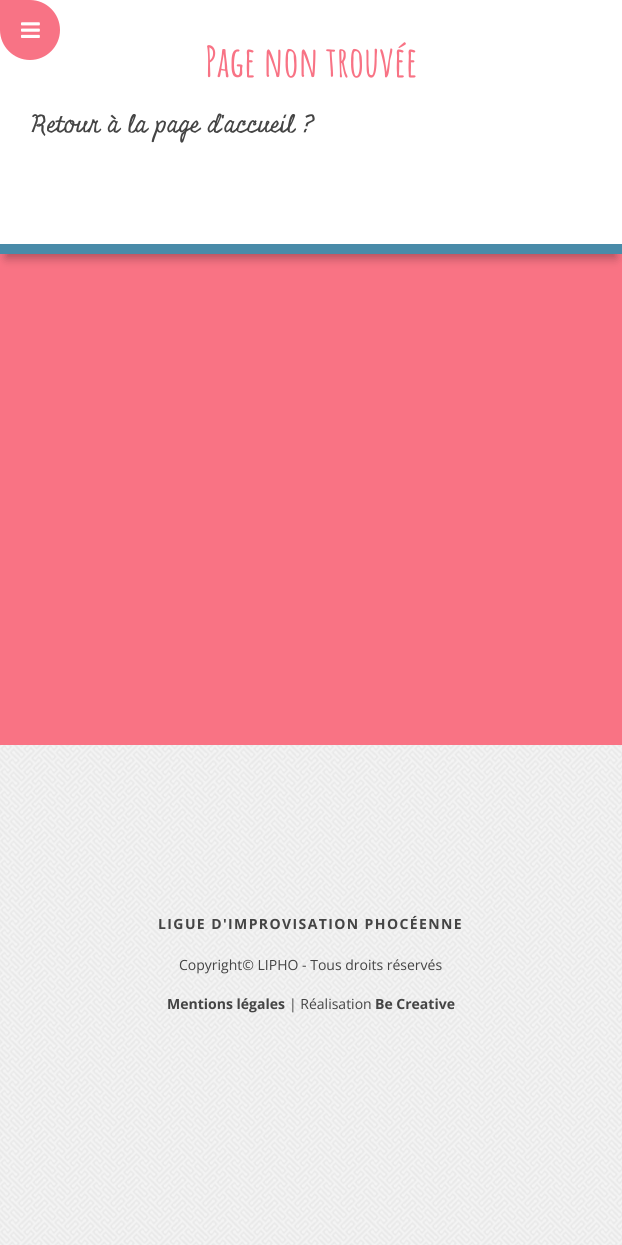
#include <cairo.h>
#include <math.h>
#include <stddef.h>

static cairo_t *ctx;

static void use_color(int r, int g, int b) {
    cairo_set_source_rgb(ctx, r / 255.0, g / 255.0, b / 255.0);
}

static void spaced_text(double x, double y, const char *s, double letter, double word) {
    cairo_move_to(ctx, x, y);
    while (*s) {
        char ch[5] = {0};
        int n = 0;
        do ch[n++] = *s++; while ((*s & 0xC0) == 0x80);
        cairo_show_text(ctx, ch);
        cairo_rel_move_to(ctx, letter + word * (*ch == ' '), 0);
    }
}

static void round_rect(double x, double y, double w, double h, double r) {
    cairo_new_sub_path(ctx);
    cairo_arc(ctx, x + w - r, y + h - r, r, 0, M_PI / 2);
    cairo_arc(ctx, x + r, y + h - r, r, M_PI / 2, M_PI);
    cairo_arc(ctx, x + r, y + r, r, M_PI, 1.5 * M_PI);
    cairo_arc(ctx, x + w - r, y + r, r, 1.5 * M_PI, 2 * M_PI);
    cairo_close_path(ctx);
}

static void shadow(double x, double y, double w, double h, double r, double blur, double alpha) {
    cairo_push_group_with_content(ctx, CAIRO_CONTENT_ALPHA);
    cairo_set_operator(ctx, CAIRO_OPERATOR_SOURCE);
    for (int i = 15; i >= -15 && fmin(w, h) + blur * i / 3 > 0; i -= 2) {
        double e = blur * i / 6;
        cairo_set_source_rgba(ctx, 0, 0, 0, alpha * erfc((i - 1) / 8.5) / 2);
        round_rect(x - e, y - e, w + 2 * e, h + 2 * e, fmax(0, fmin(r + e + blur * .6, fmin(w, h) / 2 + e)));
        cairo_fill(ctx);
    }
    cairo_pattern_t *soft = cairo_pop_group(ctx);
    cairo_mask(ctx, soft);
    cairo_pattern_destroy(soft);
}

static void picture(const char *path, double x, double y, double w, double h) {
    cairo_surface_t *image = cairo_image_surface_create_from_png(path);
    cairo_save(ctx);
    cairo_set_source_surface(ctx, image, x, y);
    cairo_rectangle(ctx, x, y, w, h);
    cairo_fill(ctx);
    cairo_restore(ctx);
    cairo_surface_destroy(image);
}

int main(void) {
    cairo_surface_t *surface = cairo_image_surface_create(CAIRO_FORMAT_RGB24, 622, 1245);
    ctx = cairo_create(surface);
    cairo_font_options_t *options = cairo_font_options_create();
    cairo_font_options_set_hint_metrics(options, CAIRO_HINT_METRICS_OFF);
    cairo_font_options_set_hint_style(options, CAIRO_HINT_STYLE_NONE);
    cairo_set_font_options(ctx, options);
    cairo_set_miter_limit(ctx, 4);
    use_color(249, 115, 132);
    cairo_paint(ctx);
    use_color(0, 0, 0);
    shadow(6, 16, 610, 242, 0, 5, 0.3);
    use_color(255, 255, 255);
    cairo_rectangle(ctx, 0, 0, 622, 244);
    cairo_fill(ctx);
    use_color(73, 139, 169);
    cairo_rectangle(ctx, 0, 244, 622, 10);
    cairo_fill(ctx);
    use_color(248, 115, 133);
    cairo_new_path(ctx);
    cairo_move_to(ctx, 0, 0);
    cairo_line_to(ctx, 30, 0);
    cairo_curve_to(ctx, 46.5, 0, 60, 13.5, 60, 30);
    cairo_curve_to(ctx, 60, 46.5, 46.5, 60, 30, 60);
    cairo_curve_to(ctx, 13.5, 60, 0, 46.5, 0, 30);
    cairo_close_path(ctx);
    cairo_fill(ctx);
    picture("img1.png", 21, 22, 19, 16);
    cairo_select_font_face(ctx, "Amatic SC", CAIRO_FONT_SLANT_NORMAL, CAIRO_FONT_WEIGHT_BOLD);
    cairo_set_font_size(ctx, 41.75);
    cairo_move_to(ctx, 205, 77);
    cairo_show_text(ctx, "Page non trouvée");
    cairo_select_font_face(ctx, "Miniver", CAIRO_FONT_SLANT_NORMAL, CAIRO_FONT_WEIGHT_NORMAL);
    cairo_set_font_size(ctx, 24.25);
    use_color(68, 68, 68);
    cairo_move_to(ctx, 31, 132);
    cairo_show_text(ctx, "Retour à la page d'accueil ?");
    picture("img2.png", 0, 745, 622, 500);
    cairo_select_font_face(ctx, "Open Sans", CAIRO_FONT_SLANT_NORMAL, CAIRO_FONT_WEIGHT_BOLD);
    cairo_set_font_size(ctx, 14);
    spaced_text(158, 929, "LIGUE D'IMPROVISATION PHOCÉENNE", 1.4, 0);
    cairo_select_font_face(ctx, "Open Sans", CAIRO_FONT_SLANT_NORMAL, CAIRO_FONT_WEIGHT_NORMAL);
    cairo_move_to(ctx, 179, 970);
    cairo_show_text(ctx, "Copyright© LIPHO - Tous droits réservés");
    cairo_select_font_face(ctx, "Open Sans", CAIRO_FONT_SLANT_NORMAL, CAIRO_FONT_WEIGHT_BOLD);
    cairo_move_to(ctx, 167, 1009);
    cairo_show_text(ctx, "Mentions légales");
    cairo_select_font_face(ctx, "Open Sans", CAIRO_FONT_SLANT_NORMAL, CAIRO_FONT_WEIGHT_NORMAL);
    cairo_move_to(ctx, 289, 1009);
    cairo_show_text(ctx, "| Réalisation");
    cairo_select_font_face(ctx, "Open Sans", CAIRO_FONT_SLANT_NORMAL, CAIRO_FONT_WEIGHT_BOLD);
    cairo_move_to(ctx, 375, 1009);
    cairo_show_text(ctx, "Be Creative");
    cairo_surface_write_to_png(surface, "result.png");
    cairo_font_options_destroy(options);
    cairo_destroy(ctx);
    cairo_surface_destroy(surface);
    return 0;
}
